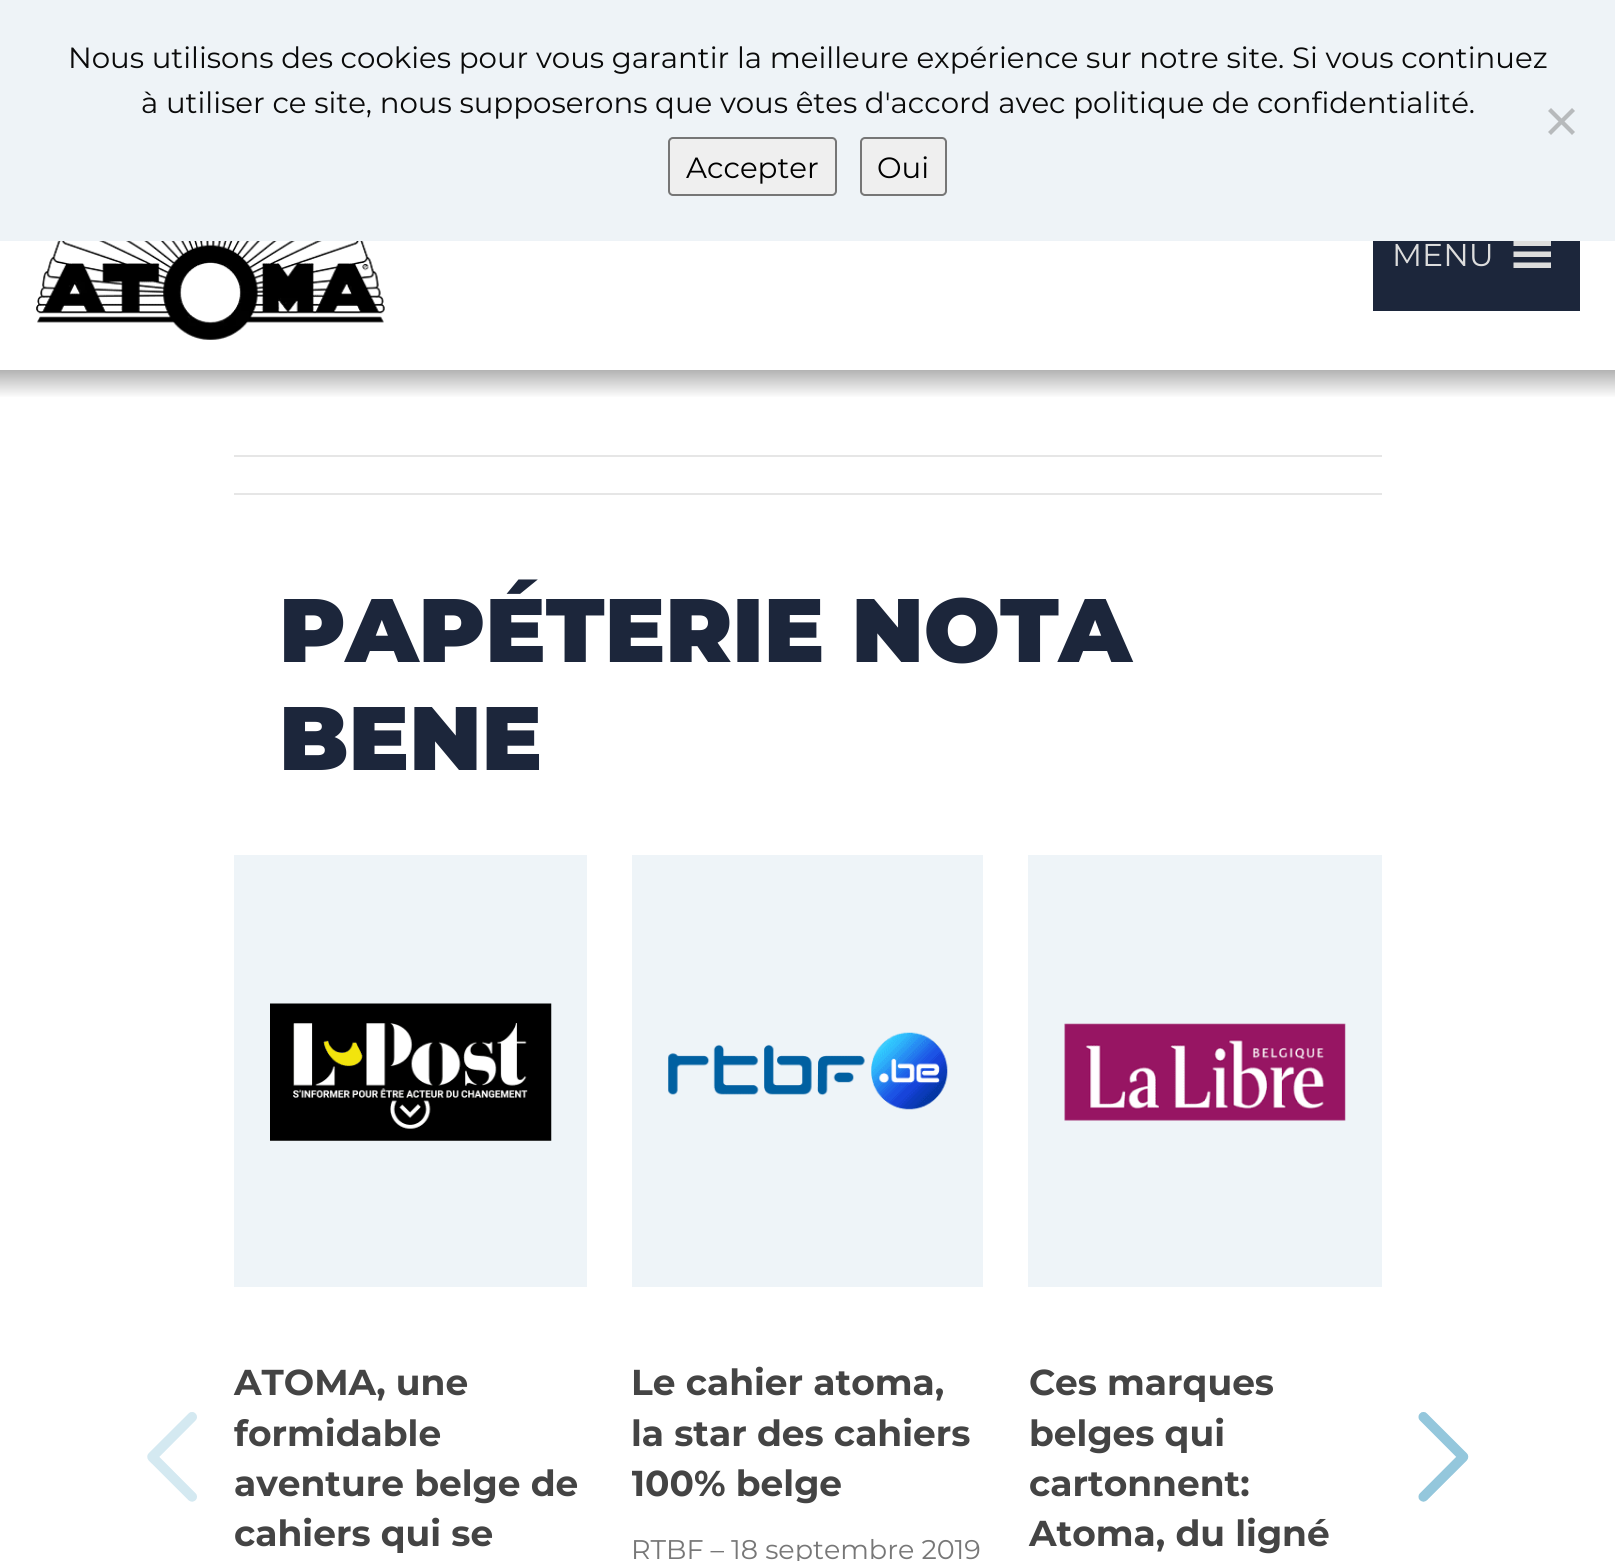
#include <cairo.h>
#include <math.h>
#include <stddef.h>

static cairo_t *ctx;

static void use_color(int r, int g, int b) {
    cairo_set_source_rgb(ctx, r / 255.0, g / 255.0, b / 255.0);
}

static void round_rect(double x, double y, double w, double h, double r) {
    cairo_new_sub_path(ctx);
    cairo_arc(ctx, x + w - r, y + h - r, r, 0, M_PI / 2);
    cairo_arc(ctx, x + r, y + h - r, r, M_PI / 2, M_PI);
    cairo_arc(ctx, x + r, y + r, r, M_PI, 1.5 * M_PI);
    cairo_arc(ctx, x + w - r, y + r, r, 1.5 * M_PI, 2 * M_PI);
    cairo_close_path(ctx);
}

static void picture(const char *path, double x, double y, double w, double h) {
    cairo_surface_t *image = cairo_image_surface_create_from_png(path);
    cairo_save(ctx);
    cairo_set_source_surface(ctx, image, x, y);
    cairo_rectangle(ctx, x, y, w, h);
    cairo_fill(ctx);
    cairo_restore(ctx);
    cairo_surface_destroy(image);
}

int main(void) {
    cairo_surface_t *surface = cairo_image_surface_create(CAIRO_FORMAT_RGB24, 1615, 1561);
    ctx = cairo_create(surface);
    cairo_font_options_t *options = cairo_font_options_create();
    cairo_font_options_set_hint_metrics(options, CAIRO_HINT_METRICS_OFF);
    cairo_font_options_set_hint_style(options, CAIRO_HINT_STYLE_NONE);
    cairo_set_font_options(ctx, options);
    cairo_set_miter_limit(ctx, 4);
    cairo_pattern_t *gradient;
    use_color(255, 255, 255);
    cairo_paint(ctx);
    use_color(238, 243, 247);
    cairo_rectangle(ctx, 0, 0, 1615, 241);
    cairo_fill(ctx);
    cairo_select_font_face(ctx, "Montserrat", CAIRO_FONT_SLANT_NORMAL, CAIRO_FONT_WEIGHT_NORMAL);
    cairo_set_font_size(ctx, 29.25);
    use_color(10, 10, 10);
    cairo_move_to(ctx, 68, 68);
    cairo_show_text(ctx, "Nous utilisons des cookies pour vous garantir la meilleure expérience sur notre site. Si vous continuez");
    cairo_move_to(ctx, 141, 113);
    cairo_show_text(ctx, "à utiliser ce site, nous supposerons que vous êtes d'accord avec politique de confidentialité.");
    use_color(183, 186, 188);
    cairo_new_path(ctx);
    cairo_move_to(ctx, 1572, 108);
    cairo_line_to(ctx, 1575, 111);
    cairo_line_to(ctx, 1551, 135);
    cairo_line_to(ctx, 1548, 132);
    cairo_close_path(ctx);
    cairo_fill(ctx);
    cairo_new_path(ctx);
    cairo_move_to(ctx, 1548, 111);
    cairo_line_to(ctx, 1551, 108);
    cairo_line_to(ctx, 1575, 132);
    cairo_line_to(ctx, 1572, 135);
    cairo_close_path(ctx);
    cairo_fill(ctx);
    use_color(239, 239, 239);
    round_rect(669, 138, 167, 57, 4);
    cairo_fill_preserve(ctx);
    use_color(118, 118, 118);
    cairo_stroke(ctx);
    use_color(0, 0, 0);
    cairo_move_to(ctx, 686, 178);
    cairo_show_text(ctx, "Accepter");
    use_color(239, 239, 239);
    round_rect(861, 138, 85, 57, 4);
    cairo_fill_preserve(ctx);
    use_color(118, 118, 118);
    cairo_stroke(ctx);
    use_color(0, 0, 0);
    cairo_move_to(ctx, 877, 178);
    cairo_show_text(ctx, "Oui");
    gradient = cairo_pattern_create_linear(808, 0, 808, 398);
    cairo_pattern_add_color_stop_rgba(gradient, 0, 1, 1, 1, 1);
    cairo_pattern_add_color_stop_rgba(gradient, 0.93, 1, 1, 1, 1);
    cairo_pattern_add_color_stop_rgba(gradient, 0.93, 0.702, 0.702, 0.702, 1);
    cairo_pattern_add_color_stop_rgba(gradient, 1, 1, 1, 1, 1);
    cairo_set_source(ctx, gradient);
    cairo_pattern_destroy(gradient);
    cairo_rectangle(ctx, 0, 370, 1615, 27);
    cairo_fill(ctx);
    picture("img1.png", 36, 241, 349, 99);
    use_color(28, 38, 59);
    cairo_rectangle(ctx, 1373, 241, 207, 70);
    cairo_fill(ctx);
    cairo_set_font_size(ctx, 31.5);
    use_color(221, 221, 221);
    cairo_move_to(ctx, 1392, 266);
    cairo_show_text(ctx, "MENU");
    cairo_new_path(ctx);
    cairo_move_to(ctx, 1513.5, 268);
    cairo_line_to(ctx, 1551, 268);
    cairo_line_to(ctx, 1551, 262.5);
    cairo_line_to(ctx, 1513.5, 262.5);
    cairo_close_path(ctx);
    cairo_move_to(ctx, 1513.5, 241);
    cairo_line_to(ctx, 1513.5, 246);
    cairo_line_to(ctx, 1551, 246);
    cairo_line_to(ctx, 1551, 241);
    cairo_close_path(ctx);
    cairo_move_to(ctx, 1513.5, 257);
    cairo_line_to(ctx, 1551, 257);
    cairo_line_to(ctx, 1551, 251.5);
    cairo_line_to(ctx, 1513.5, 251.5);
    cairo_close_path(ctx);
    cairo_fill(ctx);
    use_color(230, 230, 230);
    cairo_rectangle(ctx, 234, 455, 1148, 2);
    cairo_fill(ctx);
    cairo_rectangle(ctx, 234, 493, 1148, 2);
    cairo_fill(ctx);
    cairo_select_font_face(ctx, "Montserrat Black", CAIRO_FONT_SLANT_NORMAL, CAIRO_FONT_WEIGHT_NORMAL);
    cairo_set_font_size(ctx, 90);
    use_color(28, 38, 59);
    cairo_move_to(ctx, 279, 662);
    cairo_show_text(ctx, "PAPÉTERIE NOTA");
    cairo_move_to(ctx, 279, 770);
    cairo_show_text(ctx, "BENE");
    picture("img2.png", 147, 1412, 50, 90);
    use_color(238, 244, 248);
    cairo_rectangle(ctx, 234, 855, 353, 432);
    cairo_fill(ctx);
    picture("img3.png", 270, 1003, 282, 138);
    cairo_select_font_face(ctx, "Montserrat", CAIRO_FONT_SLANT_NORMAL, CAIRO_FONT_WEIGHT_BOLD);
    cairo_set_font_size(ctx, 36);
    use_color(68, 68, 68);
    cairo_move_to(ctx, 234, 1395);
    cairo_show_text(ctx, "ATOMA, une");
    cairo_move_to(ctx, 234, 1446);
    cairo_show_text(ctx, "formidable");
    cairo_move_to(ctx, 234, 1496);
    cairo_show_text(ctx, "aventure belge de");
    cairo_move_to(ctx, 234, 1546);
    cairo_show_text(ctx, "cahiers qui se");
    use_color(238, 244, 248);
    cairo_rectangle(ctx, 632, 855, 351, 432);
    cairo_fill(ctx);
    picture("img4.png", 668, 1032, 280, 78);
    use_color(68, 68, 68);
    cairo_move_to(ctx, 631, 1395);
    cairo_show_text(ctx, "Le cahier atoma,");
    cairo_move_to(ctx, 631, 1446);
    cairo_show_text(ctx, "la star des cahiers");
    cairo_save(ctx);
    cairo_rectangle(ctx, 632, 855, 351, 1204);
    cairo_clip(ctx);
    cairo_move_to(ctx, 631, 1496);
    cairo_show_text(ctx, "100% belge");
    cairo_restore(ctx);
    cairo_select_font_face(ctx, "Montserrat", CAIRO_FONT_SLANT_NORMAL, CAIRO_FONT_WEIGHT_NORMAL);
    cairo_set_font_size(ctx, 27);
    use_color(119, 119, 119);
    cairo_move_to(ctx, 631, 1559);
    cairo_show_text(ctx, "RTBF – 18 septembre 2019");
    use_color(238, 244, 248);
    cairo_rectangle(ctx, 1028, 855, 354, 432);
    cairo_fill(ctx);
    picture("img5.png", 1064, 1023, 282, 98);
    cairo_select_font_face(ctx, "Montserrat", CAIRO_FONT_SLANT_NORMAL, CAIRO_FONT_WEIGHT_BOLD);
    cairo_set_font_size(ctx, 36);
    use_color(68, 68, 68);
    cairo_move_to(ctx, 1029, 1395);
    cairo_show_text(ctx, "Ces marques");
    cairo_move_to(ctx, 1029, 1446);
    cairo_show_text(ctx, "belges qui");
    cairo_move_to(ctx, 1029, 1496);
    cairo_show_text(ctx, "cartonnent:");
    cairo_move_to(ctx, 1029, 1546);
    cairo_show_text(ctx, "Atoma, du ligné");
    picture("img6.png", 1418, 1412, 51, 90);
    cairo_surface_write_to_png(surface, "result.png");
    cairo_font_options_destroy(options);
    cairo_destroy(ctx);
    cairo_surface_destroy(surface);
    return 0;
}
